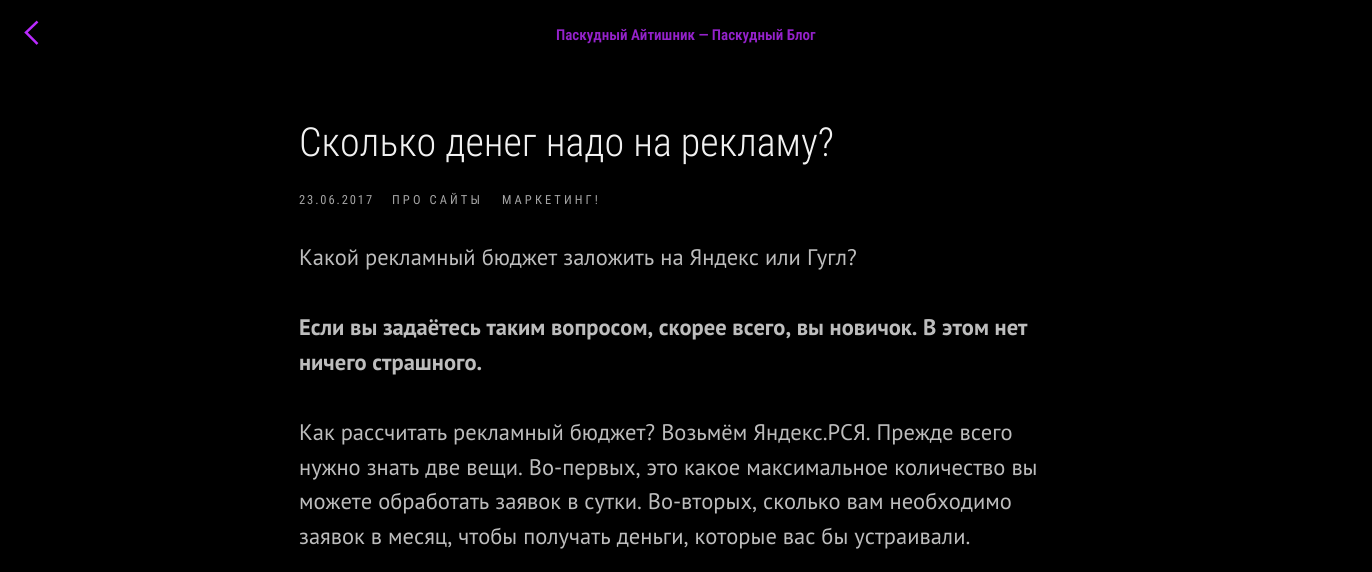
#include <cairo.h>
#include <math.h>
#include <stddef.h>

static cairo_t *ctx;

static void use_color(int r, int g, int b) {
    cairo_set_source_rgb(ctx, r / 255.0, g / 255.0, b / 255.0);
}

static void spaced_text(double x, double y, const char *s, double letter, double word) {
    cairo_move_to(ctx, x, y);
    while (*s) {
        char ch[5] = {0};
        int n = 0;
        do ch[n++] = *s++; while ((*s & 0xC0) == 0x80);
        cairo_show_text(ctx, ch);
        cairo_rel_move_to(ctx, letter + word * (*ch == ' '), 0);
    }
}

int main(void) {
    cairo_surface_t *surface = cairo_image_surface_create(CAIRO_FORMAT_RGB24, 1372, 572);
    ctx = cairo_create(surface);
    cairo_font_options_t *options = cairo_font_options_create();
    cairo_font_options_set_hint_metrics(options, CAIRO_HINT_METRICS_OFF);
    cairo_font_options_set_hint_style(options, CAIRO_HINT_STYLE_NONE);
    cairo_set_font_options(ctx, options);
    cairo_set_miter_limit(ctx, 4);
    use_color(0, 0, 0);
    cairo_paint(ctx);
    cairo_new_path(ctx);
    cairo_move_to(ctx, 37.5, 44);
    cairo_line_to(ctx, 26, 32.5);
    cairo_line_to(ctx, 37.5, 21.5);
    use_color(186, 42, 255);
    cairo_set_line_width(ctx, 2.5);
    cairo_stroke(ctx);
    cairo_select_font_face(ctx, "Roboto Condensed SemiBold", CAIRO_FONT_SLANT_NORMAL, CAIRO_FONT_WEIGHT_NORMAL);
    cairo_set_font_size(ctx, 15);
    use_color(149, 34, 204);
    cairo_move_to(ctx, 556, 40);
    cairo_show_text(ctx, "Паскудный Айтишник — Паскудный Блог");
    cairo_select_font_face(ctx, "Roboto Condensed Light", CAIRO_FONT_SLANT_NORMAL, CAIRO_FONT_WEIGHT_NORMAL);
    cairo_set_font_size(ctx, 40);
    use_color(241, 241, 241);
    cairo_move_to(ctx, 299, 156);
    cairo_show_text(ctx, "Сколько денег надо на рекламу?");
    cairo_select_font_face(ctx, "Roboto Condensed", CAIRO_FONT_SLANT_NORMAL, CAIRO_FONT_WEIGHT_NORMAL);
    cairo_set_font_size(ctx, 12.5);
    use_color(164, 164, 164);
    spaced_text(299, 204, "23.06.2017", 1.9, 0);
    spaced_text(392, 204, "ПРО САЙТЫ", 3.1, 0);
    spaced_text(502, 204, "МАРКЕТИНГ!", 3.1, 0);
    cairo_select_font_face(ctx, "PT Sans", CAIRO_FONT_SLANT_NORMAL, CAIRO_FONT_WEIGHT_NORMAL);
    cairo_set_font_size(ctx, 22.5);
    use_color(189, 189, 189);
    cairo_move_to(ctx, 299, 265);
    cairo_show_text(ctx, "Какой рекламный бюджет заложить на Яндекс или Гугл?");
    cairo_select_font_face(ctx, "PT Sans", CAIRO_FONT_SLANT_NORMAL, CAIRO_FONT_WEIGHT_BOLD);
    cairo_move_to(ctx, 299, 335);
    cairo_show_text(ctx, "Если вы задаётесь таким вопросом, скорее всего, вы новичок. В этом нет");
    cairo_move_to(ctx, 299, 370);
    cairo_show_text(ctx, "ничего страшного.");
    cairo_select_font_face(ctx, "PT Sans", CAIRO_FONT_SLANT_NORMAL, CAIRO_FONT_WEIGHT_NORMAL);
    cairo_move_to(ctx, 299, 440);
    cairo_show_text(ctx, "Как рассчитать рекламный бюджет? Возьмём Яндекс.РСЯ. Прежде всего");
    cairo_move_to(ctx, 299, 475);
    cairo_show_text(ctx, "нужно знать две вещи. Во-первых, это какое максимальное количество вы");
    cairo_move_to(ctx, 299, 509);
    cairo_show_text(ctx, "можете обработать заявок в сутки. Во-вторых, сколько вам необходимо");
    cairo_move_to(ctx, 299, 544);
    cairo_show_text(ctx, "заявок в месяц, чтобы получать деньги, которые вас бы устраивали.");
    cairo_surface_write_to_png(surface, "result.png");
    cairo_font_options_destroy(options);
    cairo_destroy(ctx);
    cairo_surface_destroy(surface);
    return 0;
}
